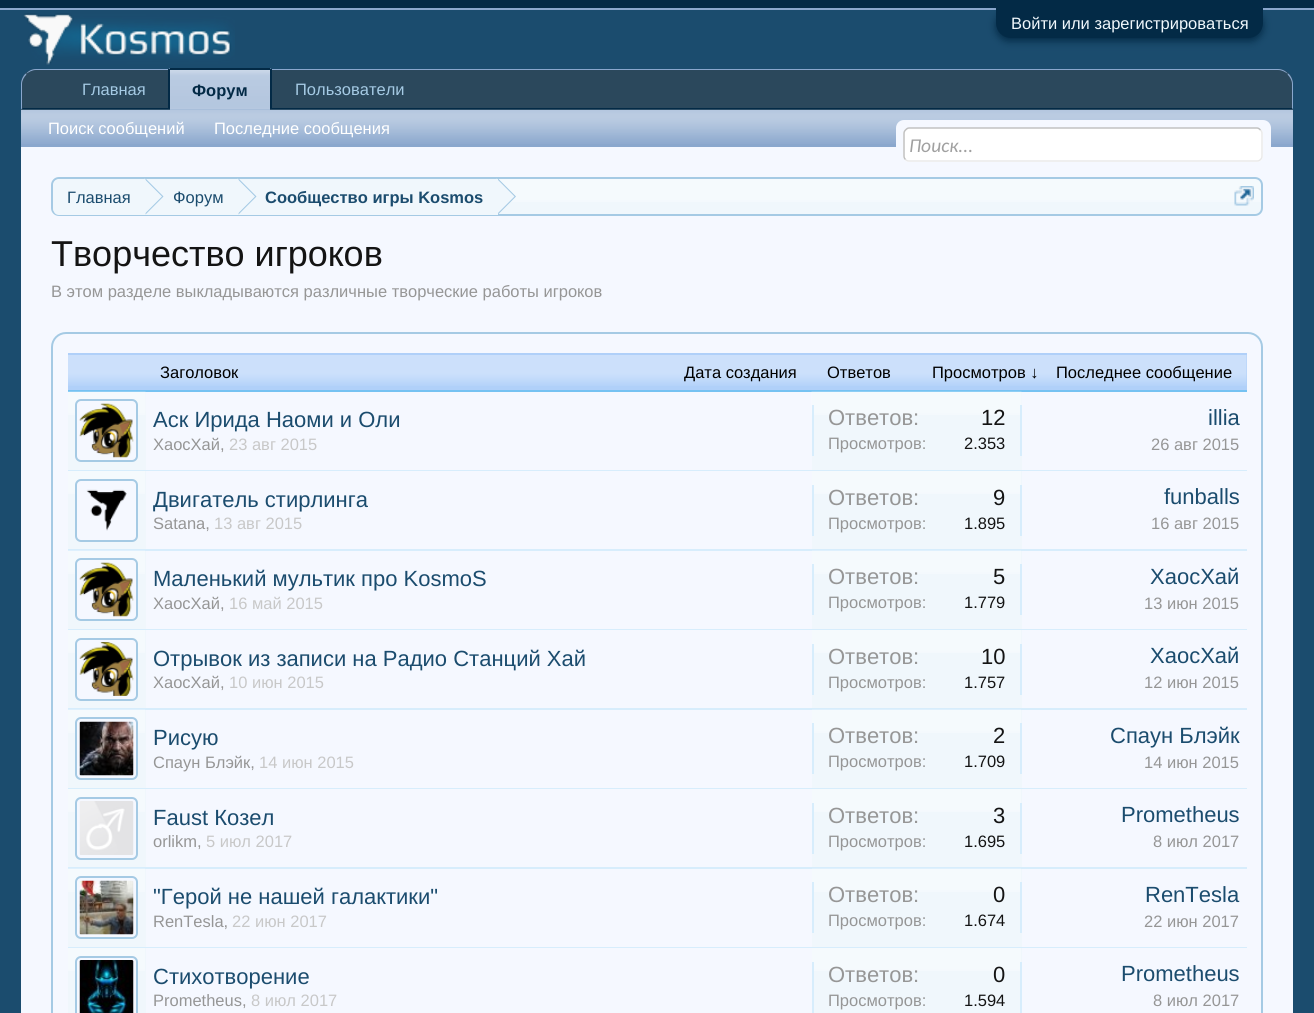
#include <cairo.h>
#include <math.h>
#include <stddef.h>

static cairo_t *ctx;

static void use_color(int r, int g, int b) {
    cairo_set_source_rgb(ctx, r / 255.0, g / 255.0, b / 255.0);
}

static void round_rect(double x, double y, double w, double h, double r) {
    cairo_new_sub_path(ctx);
    cairo_arc(ctx, x + w - r, y + h - r, r, 0, M_PI / 2);
    cairo_arc(ctx, x + r, y + h - r, r, M_PI / 2, M_PI);
    cairo_arc(ctx, x + r, y + r, r, M_PI, 1.5 * M_PI);
    cairo_arc(ctx, x + w - r, y + r, r, 1.5 * M_PI, 2 * M_PI);
    cairo_close_path(ctx);
}

static void shadow(double x, double y, double w, double h, double r, double blur, double alpha) {
    cairo_push_group_with_content(ctx, CAIRO_CONTENT_ALPHA);
    cairo_set_operator(ctx, CAIRO_OPERATOR_SOURCE);
    for (int i = 15; i >= -15 && fmin(w, h) + blur * i / 3 > 0; i -= 2) {
        double e = blur * i / 6;
        cairo_set_source_rgba(ctx, 0, 0, 0, alpha * erfc((i - 1) / 8.5) / 2);
        round_rect(x - e, y - e, w + 2 * e, h + 2 * e, fmax(0, fmin(r + e + blur * .6, fmin(w, h) / 2 + e)));
        cairo_fill(ctx);
    }
    cairo_pattern_t *soft = cairo_pop_group(ctx);
    cairo_mask(ctx, soft);
    cairo_pattern_destroy(soft);
}

static void picture(const char *path, double x, double y, double w, double h) {
    cairo_surface_t *image = cairo_image_surface_create_from_png(path);
    cairo_save(ctx);
    cairo_set_source_surface(ctx, image, x, y);
    cairo_rectangle(ctx, x, y, w, h);
    cairo_fill(ctx);
    cairo_restore(ctx);
    cairo_surface_destroy(image);
}

int main(void) {
    cairo_surface_t *surface = cairo_image_surface_create(CAIRO_FORMAT_RGB24, 1314, 1013);
    ctx = cairo_create(surface);
    cairo_font_options_t *options = cairo_font_options_create();
    cairo_font_options_set_hint_metrics(options, CAIRO_HINT_METRICS_OFF);
    cairo_font_options_set_hint_style(options, CAIRO_HINT_STYLE_NONE);
    cairo_set_font_options(ctx, options);
    cairo_set_miter_limit(ctx, 4);
    use_color(27, 76, 110);
    cairo_paint(ctx);
    use_color(3, 42, 70);
    cairo_rectangle(ctx, 0, 0, 1314, 8);
    cairo_fill(ctx);
    use_color(138, 167, 205);
    cairo_rectangle(ctx, 0, 8, 1314, 2);
    cairo_fill(ctx);
    use_color(3, 42, 70);
    shadow(996, 11, 267, 30, 15, 4, 1);
    use_color(3, 42, 70);
    cairo_new_path(ctx);
    cairo_move_to(ctx, 996, 8);
    cairo_line_to(ctx, 1263, 8);
    cairo_line_to(ctx, 1263, 23);
    cairo_curve_to(ctx, 1263, 31.5, 1256.5, 38, 1248, 38);
    cairo_line_to(ctx, 1011, 38);
    cairo_curve_to(ctx, 1002.5, 38, 996, 31.5, 996, 23);
    cairo_close_path(ctx);
    cairo_fill(ctx);
    cairo_select_font_face(ctx, "Liberation Sans", CAIRO_FONT_SLANT_NORMAL, CAIRO_FONT_WEIGHT_NORMAL);
    cairo_set_font_size(ctx, 16.5);
    use_color(240, 247, 252);
    cairo_move_to(ctx, 1011, 29);
    cairo_show_text(ctx, "Войти или зарегистрироваться");
    picture("img1.png", 23, 13, 212, 52);
    use_color(43, 72, 92);
    cairo_new_path(ctx);
    cairo_move_to(ctx, 36, 69);
    cairo_line_to(ctx, 1278, 69);
    cairo_curve_to(ctx, 1286.5, 69, 1293, 75.5, 1293, 84);
    cairo_line_to(ctx, 1293, 110);
    cairo_line_to(ctx, 21, 110);
    cairo_line_to(ctx, 21, 84);
    cairo_curve_to(ctx, 21, 75.5, 27.5, 69, 36, 69);
    cairo_close_path(ctx);
    cairo_fill(ctx);
    use_color(138, 167, 205);
    cairo_new_path(ctx);
    cairo_move_to(ctx, 36, 69);
    cairo_curve_to(ctx, 32, 69, 28, 71, 26, 74);
    cairo_curve_to(ctx, 29, 72, 32, 70, 36, 70);
    cairo_line_to(ctx, 1278, 70);
    cairo_curve_to(ctx, 1282, 70, 1285, 72, 1288, 74);
    cairo_curve_to(ctx, 1286, 71, 1282, 69, 1278, 69);
    cairo_close_path(ctx);
    cairo_fill(ctx);
    cairo_new_path(ctx);
    cairo_move_to(ctx, 1293, 109.5);
    cairo_line_to(ctx, 1293, 84);
    cairo_curve_to(ctx, 1293, 80, 1291, 76, 1288.5, 73.5);
    cairo_line_to(ctx, 1287.5, 74.5);
    cairo_curve_to(ctx, 1290, 77, 1292, 80.5, 1292, 84);
    cairo_line_to(ctx, 1292, 108);
    cairo_line_to(ctx, 1291.5, 108);
    cairo_close_path(ctx);
    cairo_fill(ctx);
    use_color(3, 42, 70);
    cairo_new_path(ctx);
    cairo_move_to(ctx, 1293, 110);
    cairo_line_to(ctx, 21, 110);
    cairo_line_to(ctx, 22, 108);
    cairo_line_to(ctx, 1292, 108);
    cairo_close_path(ctx);
    cairo_fill(ctx);
    use_color(138, 167, 205);
    cairo_new_path(ctx);
    cairo_move_to(ctx, 21, 109.5);
    cairo_line_to(ctx, 22.5, 108);
    cairo_line_to(ctx, 22, 108);
    cairo_line_to(ctx, 22, 84);
    cairo_curve_to(ctx, 22, 80.5, 24, 77, 26.5, 74.5);
    cairo_line_to(ctx, 25.5, 73.5);
    cairo_curve_to(ctx, 23, 76, 21, 80, 21, 84);
    cairo_close_path(ctx);
    cairo_fill(ctx);
    use_color(165, 202, 228);
    cairo_move_to(ctx, 82, 95);
    cairo_show_text(ctx, "Главная");
    cairo_move_to(ctx, 295, 95);
    cairo_show_text(ctx, "Пользователи");
    use_color(138, 167, 205);
    cairo_new_path(ctx);
    cairo_move_to(ctx, 171, 68);
    cairo_line_to(ctx, 269, 68);
    cairo_curve_to(ctx, 270.5, 68, 272, 69.5, 272, 71);
    cairo_line_to(ctx, 272, 110);
    cairo_line_to(ctx, 168, 110);
    cairo_line_to(ctx, 168, 71);
    cairo_curve_to(ctx, 168, 69.5, 169.5, 68, 171, 68);
    cairo_close_path(ctx);
    cairo_fill(ctx);
    picture("img2.png", 170, 70, 100, 40);
    use_color(3, 42, 70);
    cairo_rectangle(ctx, 170, 68, 100, 2);
    cairo_fill(ctx);
    cairo_rectangle(ctx, 270, 69, 2, 41);
    cairo_fill(ctx);
    cairo_rectangle(ctx, 168, 69, 2, 41);
    cairo_fill(ctx);
    cairo_select_font_face(ctx, "Liberation Sans", CAIRO_FONT_SLANT_NORMAL, CAIRO_FONT_WEIGHT_BOLD);
    cairo_move_to(ctx, 192, 96);
    cairo_show_text(ctx, "Форум");
    use_color(138, 167, 205);
    cairo_rectangle(ctx, 21, 110, 1272, 37);
    cairo_fill(ctx);
    picture("img3.png", 21, 109, 1272, 35);
    cairo_select_font_face(ctx, "Liberation Sans", CAIRO_FONT_SLANT_NORMAL, CAIRO_FONT_WEIGHT_NORMAL);
    use_color(255, 255, 255);
    cairo_move_to(ctx, 48, 134);
    cairo_show_text(ctx, "Поиск сообщений");
    cairo_move_to(ctx, 214, 134);
    cairo_show_text(ctx, "Последние сообщения");
    use_color(245, 248, 255);
    cairo_rectangle(ctx, 21, 147, 1272, 866);
    cairo_fill(ctx);
    round_rect(896, 120, 375, 42, 8);
    cairo_fill(ctx);
    use_color(255, 255, 255);
    round_rect(903, 128, 360, 34, 6);
    cairo_fill(ctx);
    cairo_new_path(ctx);
    cairo_move_to(ctx, 1260.5, 130);
    cairo_curve_to(ctx, 1261.5, 131, 1262, 132, 1262, 133.5);
    cairo_line_to(ctx, 1262, 156);
    cairo_curve_to(ctx, 1262, 157.5, 1261.5, 158.5, 1260.5, 159.5);
    cairo_curve_to(ctx, 1259.5, 160.5, 1258.5, 161, 1257, 161);
    cairo_line_to(ctx, 909, 161);
    cairo_curve_to(ctx, 907.5, 161, 906.5, 160.5, 905.5, 159.5);
    use_color(233, 233, 233);
    cairo_set_line_width(ctx, 1.5);
    cairo_stroke(ctx);
    cairo_new_path(ctx);
    cairo_move_to(ctx, 905.5, 159.5);
    cairo_curve_to(ctx, 904.5, 158.5, 904, 157.5, 904, 156);
    cairo_line_to(ctx, 904, 133.5);
    cairo_curve_to(ctx, 904, 132, 904.5, 131, 905.5, 130);
    cairo_curve_to(ctx, 906.5, 129, 907.5, 128, 909, 128);
    cairo_line_to(ctx, 1257, 128);
    cairo_curve_to(ctx, 1258.5, 128, 1259.5, 129, 1260.5, 130);
    use_color(192, 192, 192);
    cairo_stroke(ctx);
    cairo_select_font_face(ctx, "Carlito", CAIRO_FONT_SLANT_ITALIC, CAIRO_FONT_WEIGHT_NORMAL);
    cairo_set_font_size(ctx, 19.5);
    use_color(160, 160, 160);
    cairo_move_to(ctx, 909, 152);
    cairo_show_text(ctx, "Поиск...");
    use_color(240, 247, 252);
    round_rect(51, 177, 1212, 39, 8);
    cairo_fill(ctx);
    picture("img4.png", 51, 179, 1212, 23);
    round_rect(52, 178, 1210, 37, 7);
    use_color(165, 202, 228);
    cairo_set_line_width(ctx, 2);
    cairo_stroke(ctx);
    cairo_save(ctx);
    round_rect(53, 179, 1209, 36, 6);
    cairo_clip(ctx);
    use_color(240, 247, 252);
    cairo_new_path(ctx);
    cairo_move_to(ctx, 61, 179);
    cairo_line_to(ctx, 146, 179);
    cairo_line_to(ctx, 146, 216);
    cairo_line_to(ctx, 61, 216);
    cairo_curve_to(ctx, 56.5, 216, 53, 212.5, 53, 208);
    cairo_line_to(ctx, 53, 187);
    cairo_curve_to(ctx, 53, 182.5, 56.5, 179, 61, 179);
    cairo_close_path(ctx);
    cairo_fill(ctx);
    cairo_restore(ctx);
    cairo_select_font_face(ctx, "Liberation Sans", CAIRO_FONT_SLANT_NORMAL, CAIRO_FONT_WEIGHT_NORMAL);
    cairo_set_font_size(ctx, 16.5);
    use_color(27, 76, 110);
    cairo_move_to(ctx, 67, 203);
    cairo_show_text(ctx, "Главная");
    use_color(240, 247, 252);
    cairo_rectangle(ctx, 146, 179, 352, 36);
    cairo_fill(ctx);
    use_color(165, 202, 228);
    cairo_new_path(ctx);
    cairo_move_to(ctx, 145.5, 214.5);
    cairo_line_to(ctx, 145.5, 178.5);
    cairo_line_to(ctx, 163.5, 196.5);
    cairo_close_path(ctx);
    cairo_fill(ctx);
    use_color(240, 247, 252);
    cairo_new_path(ctx);
    cairo_move_to(ctx, 144, 214.5);
    cairo_line_to(ctx, 144, 178.5);
    cairo_line_to(ctx, 162, 196.5);
    cairo_close_path(ctx);
    cairo_fill(ctx);
    use_color(27, 76, 110);
    cairo_move_to(ctx, 173, 203);
    cairo_show_text(ctx, "Форум");
    use_color(165, 202, 228);
    cairo_new_path(ctx);
    cairo_move_to(ctx, 238.5, 214.5);
    cairo_line_to(ctx, 238.5, 178.5);
    cairo_line_to(ctx, 256.5, 196.5);
    cairo_close_path(ctx);
    cairo_fill(ctx);
    use_color(240, 247, 252);
    cairo_new_path(ctx);
    cairo_move_to(ctx, 237, 214.5);
    cairo_line_to(ctx, 237, 178.5);
    cairo_line_to(ctx, 255, 196.5);
    cairo_close_path(ctx);
    cairo_fill(ctx);
    cairo_select_font_face(ctx, "Liberation Sans", CAIRO_FONT_SLANT_NORMAL, CAIRO_FONT_WEIGHT_BOLD);
    use_color(27, 76, 110);
    cairo_move_to(ctx, 265, 203);
    cairo_show_text(ctx, "Сообщество игры Kosmos");
    use_color(165, 202, 228);
    cairo_new_path(ctx);
    cairo_move_to(ctx, 498, 214.5);
    cairo_line_to(ctx, 498, 178.5);
    cairo_line_to(ctx, 516, 196.5);
    cairo_close_path(ctx);
    cairo_fill(ctx);
    use_color(240, 247, 252);
    cairo_new_path(ctx);
    cairo_move_to(ctx, 496.5, 214.5);
    cairo_line_to(ctx, 496.5, 178.5);
    cairo_line_to(ctx, 514.5, 196.5);
    cairo_close_path(ctx);
    cairo_fill(ctx);
    picture("img5.png", 1234, 186, 20, 20);
    cairo_select_font_face(ctx, "Liberation Sans", CAIRO_FONT_SLANT_NORMAL, CAIRO_FONT_WEIGHT_NORMAL);
    cairo_set_font_size(ctx, 36);
    use_color(20, 20, 20);
    cairo_move_to(ctx, 51, 266);
    cairo_show_text(ctx, "Творчество игроков");
    cairo_set_font_size(ctx, 16.5);
    use_color(150, 150, 150);
    cairo_move_to(ctx, 51, 297);
    cairo_show_text(ctx, "В этом разделе выкладываются различные творческие работы игроков");
    round_rect(52, 333, 1210, 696, 14);
    use_color(165, 202, 228);
    cairo_stroke(ctx);
    use_color(176, 208, 249);
    cairo_rectangle(ctx, 68, 353, 1179, 37);
    cairo_fill(ctx);
    picture("img6.png", 68, 355, 1179, 31);
    use_color(117, 194, 242);
    cairo_rectangle(ctx, 68, 390, 1179, 2);
    cairo_fill(ctx);
    use_color(0, 0, 0);
    cairo_move_to(ctx, 160, 378);
    cairo_show_text(ctx, "Заголовок");
    cairo_move_to(ctx, 684, 378);
    cairo_show_text(ctx, "Дата создания");
    cairo_move_to(ctx, 827, 378);
    cairo_show_text(ctx, "Ответов");
    cairo_move_to(ctx, 932, 378);
    cairo_show_text(ctx, "Просмотров ↓");
    cairo_move_to(ctx, 1056, 378);
    cairo_show_text(ctx, "Последнее сообщение");
    use_color(215, 237, 252);
    cairo_rectangle(ctx, 68, 470, 1179, 1);
    cairo_fill(ctx);
    use_color(240, 247, 252);
    cairo_rectangle(ctx, 68, 392, 78, 78);
    cairo_fill(ctx);
    picture("img7.png", 68, 391, 78, 24);
    use_color(245, 248, 255);
    round_rect(76, 400, 61, 61, 5);
    cairo_fill_preserve(ctx);
    use_color(165, 202, 228);
    cairo_stroke(ctx);
    picture("img8.png", 79, 403, 55, 55);
    cairo_set_font_size(ctx, 22);
    use_color(27, 76, 110);
    cairo_move_to(ctx, 153, 427);
    cairo_show_text(ctx, "Аск Ирида Наоми и Оли");
    cairo_set_font_size(ctx, 16.5);
    use_color(150, 150, 150);
    cairo_move_to(ctx, 153, 450);
    cairo_show_text(ctx, "ХаосХай,");
    use_color(200, 200, 200);
    cairo_move_to(ctx, 229, 450);
    cairo_show_text(ctx, "23 авг 2015");
    use_color(240, 247, 252);
    cairo_rectangle(ctx, 812, 392, 210, 78);
    cairo_fill(ctx);
    picture("img9.png", 811, 391, 211, 24);
    use_color(215, 237, 252);
    cairo_rectangle(ctx, 1020, 405, 2, 51);
    cairo_fill(ctx);
    cairo_rectangle(ctx, 812, 405, 2, 51);
    cairo_fill(ctx);
    cairo_set_font_size(ctx, 22);
    use_color(150, 150, 150);
    cairo_move_to(ctx, 828, 425);
    cairo_show_text(ctx, "Ответов:");
    use_color(20, 20, 20);
    cairo_move_to(ctx, 981, 425);
    cairo_show_text(ctx, "12");
    cairo_set_font_size(ctx, 16.5);
    use_color(150, 150, 150);
    cairo_move_to(ctx, 828, 449);
    cairo_show_text(ctx, "Просмотров:");
    use_color(20, 20, 20);
    cairo_move_to(ctx, 964, 449);
    cairo_show_text(ctx, "2.353");
    cairo_set_font_size(ctx, 22);
    use_color(27, 76, 110);
    cairo_move_to(ctx, 1208, 425);
    cairo_show_text(ctx, "illia");
    cairo_set_font_size(ctx, 16.5);
    use_color(150, 150, 150);
    cairo_move_to(ctx, 1151, 450);
    cairo_show_text(ctx, "26 авг 2015");
    use_color(215, 237, 252);
    cairo_rectangle(ctx, 68, 549, 1179, 2);
    cairo_fill(ctx);
    use_color(240, 247, 252);
    cairo_rectangle(ctx, 68, 471, 78, 78);
    cairo_fill(ctx);
    picture("img10.png", 68, 471, 77, 23);
    use_color(245, 248, 255);
    round_rect(76, 480, 61, 61, 5);
    cairo_fill_preserve(ctx);
    use_color(165, 202, 228);
    cairo_stroke(ctx);
    picture("img11.png", 86, 489, 41, 42);
    cairo_set_font_size(ctx, 22);
    use_color(27, 76, 110);
    cairo_move_to(ctx, 153, 507);
    cairo_show_text(ctx, "Двигатель стирлинга");
    cairo_set_font_size(ctx, 16.5);
    use_color(150, 150, 150);
    cairo_move_to(ctx, 153, 529);
    cairo_show_text(ctx, "Satana,");
    use_color(200, 200, 200);
    cairo_move_to(ctx, 214, 529);
    cairo_show_text(ctx, "13 авг 2015");
    use_color(240, 247, 252);
    cairo_rectangle(ctx, 812, 471, 210, 78);
    cairo_fill(ctx);
    picture("img12.png", 812, 471, 209, 23);
    use_color(215, 237, 252);
    cairo_rectangle(ctx, 1020, 485, 2, 51);
    cairo_fill(ctx);
    cairo_rectangle(ctx, 812, 485, 2, 51);
    cairo_fill(ctx);
    cairo_set_font_size(ctx, 22);
    use_color(150, 150, 150);
    cairo_move_to(ctx, 828, 505);
    cairo_show_text(ctx, "Ответов:");
    use_color(20, 20, 20);
    cairo_move_to(ctx, 993, 505);
    cairo_show_text(ctx, "9");
    cairo_set_font_size(ctx, 16.5);
    use_color(150, 150, 150);
    cairo_move_to(ctx, 828, 529);
    cairo_show_text(ctx, "Просмотров:");
    use_color(20, 20, 20);
    cairo_move_to(ctx, 964, 529);
    cairo_show_text(ctx, "1.895");
    cairo_set_font_size(ctx, 22);
    use_color(27, 76, 110);
    cairo_move_to(ctx, 1164, 504);
    cairo_show_text(ctx, "funballs");
    cairo_set_font_size(ctx, 16.5);
    use_color(150, 150, 150);
    cairo_move_to(ctx, 1151, 529);
    cairo_show_text(ctx, "16 авг 2015");
    use_color(215, 237, 252);
    cairo_rectangle(ctx, 68, 629, 1179, 1);
    cairo_fill(ctx);
    use_color(240, 247, 252);
    cairo_rectangle(ctx, 68, 551, 78, 78);
    cairo_fill(ctx);
    picture("img13.png", 68, 550, 77, 24);
    use_color(245, 248, 255);
    round_rect(76, 559, 61, 61, 5);
    cairo_fill_preserve(ctx);
    use_color(165, 202, 228);
    cairo_stroke(ctx);
    picture("img14.png", 79, 562, 55, 55);
    cairo_set_font_size(ctx, 22);
    use_color(27, 76, 110);
    cairo_move_to(ctx, 153, 586);
    cairo_show_text(ctx, "Маленький мультик про KosmoS");
    cairo_set_font_size(ctx, 16.5);
    use_color(150, 150, 150);
    cairo_move_to(ctx, 153, 609);
    cairo_show_text(ctx, "ХаосХай,");
    use_color(200, 200, 200);
    cairo_move_to(ctx, 229, 609);
    cairo_show_text(ctx, "16 май 2015");
    use_color(240, 247, 252);
    cairo_rectangle(ctx, 812, 551, 210, 78);
    cairo_fill(ctx);
    picture("img15.png", 812, 550, 209, 24);
    use_color(215, 237, 252);
    cairo_rectangle(ctx, 1020, 564, 2, 51);
    cairo_fill(ctx);
    cairo_rectangle(ctx, 812, 564, 2, 51);
    cairo_fill(ctx);
    cairo_set_font_size(ctx, 22);
    use_color(150, 150, 150);
    cairo_move_to(ctx, 828, 584);
    cairo_show_text(ctx, "Ответов:");
    use_color(20, 20, 20);
    cairo_move_to(ctx, 993, 584);
    cairo_show_text(ctx, "5");
    cairo_set_font_size(ctx, 16.5);
    use_color(150, 150, 150);
    cairo_move_to(ctx, 828, 608);
    cairo_show_text(ctx, "Просмотров:");
    use_color(20, 20, 20);
    cairo_move_to(ctx, 964, 608);
    cairo_show_text(ctx, "1.779");
    cairo_set_font_size(ctx, 22);
    use_color(27, 76, 110);
    cairo_move_to(ctx, 1150, 584);
    cairo_show_text(ctx, "ХаосХай");
    cairo_set_font_size(ctx, 16.5);
    use_color(150, 150, 150);
    cairo_move_to(ctx, 1144, 609);
    cairo_show_text(ctx, "13 июн 2015");
    use_color(215, 237, 252);
    cairo_rectangle(ctx, 68, 708, 1179, 2);
    cairo_fill(ctx);
    use_color(240, 247, 252);
    cairo_rectangle(ctx, 68, 630, 78, 78);
    cairo_fill(ctx);
    picture("img10.png", 68, 630, 77, 23);
    use_color(245, 248, 255);
    round_rect(76, 639, 61, 61, 5);
    cairo_fill_preserve(ctx);
    use_color(165, 202, 228);
    cairo_stroke(ctx);
    picture("img16.png", 79, 642, 55, 54);
    cairo_set_font_size(ctx, 22);
    use_color(27, 76, 110);
    cairo_move_to(ctx, 153, 666);
    cairo_show_text(ctx, "Отрывок из записи на Радио Станций Хай");
    cairo_set_font_size(ctx, 16.5);
    use_color(150, 150, 150);
    cairo_move_to(ctx, 153, 688);
    cairo_show_text(ctx, "ХаосХай,");
    use_color(200, 200, 200);
    cairo_move_to(ctx, 229, 688);
    cairo_show_text(ctx, "10 июн 2015");
    use_color(240, 247, 252);
    cairo_rectangle(ctx, 812, 630, 210, 78);
    cairo_fill(ctx);
    picture("img12.png", 812, 630, 209, 23);
    use_color(215, 237, 252);
    cairo_rectangle(ctx, 1020, 644, 2, 51);
    cairo_fill(ctx);
    cairo_rectangle(ctx, 812, 644, 2, 51);
    cairo_fill(ctx);
    cairo_set_font_size(ctx, 22);
    use_color(150, 150, 150);
    cairo_move_to(ctx, 828, 664);
    cairo_show_text(ctx, "Ответов:");
    use_color(20, 20, 20);
    cairo_move_to(ctx, 981, 664);
    cairo_show_text(ctx, "10");
    cairo_set_font_size(ctx, 16.5);
    use_color(150, 150, 150);
    cairo_move_to(ctx, 828, 688);
    cairo_show_text(ctx, "Просмотров:");
    use_color(20, 20, 20);
    cairo_move_to(ctx, 964, 688);
    cairo_show_text(ctx, "1.757");
    cairo_set_font_size(ctx, 22);
    use_color(27, 76, 110);
    cairo_move_to(ctx, 1150, 663);
    cairo_show_text(ctx, "ХаосХай");
    cairo_set_font_size(ctx, 16.5);
    use_color(150, 150, 150);
    cairo_move_to(ctx, 1144, 688);
    cairo_show_text(ctx, "12 июн 2015");
    use_color(215, 237, 252);
    cairo_rectangle(ctx, 68, 788, 1179, 1);
    cairo_fill(ctx);
    use_color(240, 247, 252);
    cairo_rectangle(ctx, 68, 710, 78, 78);
    cairo_fill(ctx);
    picture("img13.png", 68, 709, 77, 24);
    use_color(245, 248, 255);
    round_rect(76, 718, 61, 61, 5);
    cairo_fill_preserve(ctx);
    use_color(165, 202, 228);
    cairo_stroke(ctx);
    picture("img17.png", 79, 721, 55, 55);
    cairo_set_font_size(ctx, 22);
    use_color(27, 76, 110);
    cairo_move_to(ctx, 153, 745);
    cairo_show_text(ctx, "Рисую");
    cairo_set_font_size(ctx, 16.5);
    use_color(150, 150, 150);
    cairo_move_to(ctx, 153, 768);
    cairo_show_text(ctx, "Спаун Блэйк,");
    use_color(200, 200, 200);
    cairo_move_to(ctx, 259, 768);
    cairo_show_text(ctx, "14 июн 2015");
    use_color(240, 247, 252);
    cairo_rectangle(ctx, 812, 710, 210, 78);
    cairo_fill(ctx);
    picture("img18.png", 812, 709, 209, 24);
    use_color(215, 237, 252);
    cairo_rectangle(ctx, 1020, 723, 2, 51);
    cairo_fill(ctx);
    cairo_rectangle(ctx, 812, 723, 2, 51);
    cairo_fill(ctx);
    cairo_set_font_size(ctx, 22);
    use_color(150, 150, 150);
    cairo_move_to(ctx, 828, 743);
    cairo_show_text(ctx, "Ответов:");
    use_color(20, 20, 20);
    cairo_move_to(ctx, 993, 743);
    cairo_show_text(ctx, "2");
    cairo_set_font_size(ctx, 16.5);
    use_color(150, 150, 150);
    cairo_move_to(ctx, 828, 767);
    cairo_show_text(ctx, "Просмотров:");
    use_color(20, 20, 20);
    cairo_move_to(ctx, 964, 767);
    cairo_show_text(ctx, "1.709");
    cairo_set_font_size(ctx, 22);
    use_color(27, 76, 110);
    cairo_move_to(ctx, 1110, 743);
    cairo_show_text(ctx, "Спаун Блэйк");
    cairo_set_font_size(ctx, 16.5);
    use_color(150, 150, 150);
    cairo_move_to(ctx, 1144, 768);
    cairo_show_text(ctx, "14 июн 2015");
    use_color(215, 237, 252);
    cairo_rectangle(ctx, 68, 867, 1179, 2);
    cairo_fill(ctx);
    use_color(240, 247, 252);
    cairo_rectangle(ctx, 68, 789, 78, 78);
    cairo_fill(ctx);
    picture("img10.png", 68, 789, 77, 23);
    use_color(245, 248, 255);
    round_rect(76, 798, 61, 61, 5);
    cairo_fill_preserve(ctx);
    use_color(165, 202, 228);
    cairo_stroke(ctx);
    picture("img19.png", 79, 801, 55, 54);
    cairo_set_font_size(ctx, 22);
    use_color(27, 76, 110);
    cairo_move_to(ctx, 153, 825);
    cairo_show_text(ctx, "Faust Козел");
    cairo_set_font_size(ctx, 16.5);
    use_color(150, 150, 150);
    cairo_move_to(ctx, 153, 847);
    cairo_show_text(ctx, "orlikm,");
    use_color(200, 200, 200);
    cairo_move_to(ctx, 206, 847);
    cairo_show_text(ctx, "5 июл 2017");
    use_color(240, 247, 252);
    cairo_rectangle(ctx, 812, 789, 210, 78);
    cairo_fill(ctx);
    picture("img12.png", 812, 789, 209, 23);
    use_color(215, 237, 252);
    cairo_rectangle(ctx, 1020, 803, 2, 51);
    cairo_fill(ctx);
    cairo_rectangle(ctx, 812, 803, 2, 51);
    cairo_fill(ctx);
    cairo_set_font_size(ctx, 22);
    use_color(150, 150, 150);
    cairo_move_to(ctx, 828, 823);
    cairo_show_text(ctx, "Ответов:");
    use_color(20, 20, 20);
    cairo_move_to(ctx, 993, 823);
    cairo_show_text(ctx, "3");
    cairo_set_font_size(ctx, 16.5);
    use_color(150, 150, 150);
    cairo_move_to(ctx, 828, 847);
    cairo_show_text(ctx, "Просмотров:");
    use_color(20, 20, 20);
    cairo_move_to(ctx, 964, 847);
    cairo_show_text(ctx, "1.695");
    cairo_set_font_size(ctx, 22);
    use_color(27, 76, 110);
    cairo_move_to(ctx, 1121, 822);
    cairo_show_text(ctx, "Prometheus");
    cairo_set_font_size(ctx, 16.5);
    use_color(150, 150, 150);
    cairo_move_to(ctx, 1153, 847);
    cairo_show_text(ctx, "8 июл 2017");
    use_color(215, 237, 252);
    cairo_rectangle(ctx, 68, 947, 1179, 1);
    cairo_fill(ctx);
    use_color(240, 247, 252);
    cairo_rectangle(ctx, 68, 869, 78, 78);
    cairo_fill(ctx);
    picture("img13.png", 68, 868, 77, 24);
    use_color(245, 248, 255);
    round_rect(76, 877, 61, 61, 5);
    cairo_fill_preserve(ctx);
    use_color(165, 202, 228);
    cairo_stroke(ctx);
    picture("img20.png", 79, 880, 55, 55);
    cairo_set_font_size(ctx, 22);
    use_color(27, 76, 110);
    cairo_move_to(ctx, 153, 904);
    cairo_show_text(ctx, "\"Герой не нашей галактики\"");
    cairo_set_font_size(ctx, 16.5);
    use_color(150, 150, 150);
    cairo_move_to(ctx, 153, 927);
    cairo_show_text(ctx, "RenTesla,");
    use_color(200, 200, 200);
    cairo_move_to(ctx, 232, 927);
    cairo_show_text(ctx, "22 июн 2017");
    use_color(240, 247, 252);
    cairo_rectangle(ctx, 812, 869, 210, 78);
    cairo_fill(ctx);
    picture("img15.png", 812, 868, 209, 24);
    use_color(215, 237, 252);
    cairo_rectangle(ctx, 1020, 882, 2, 51);
    cairo_fill(ctx);
    cairo_rectangle(ctx, 812, 882, 2, 51);
    cairo_fill(ctx);
    cairo_set_font_size(ctx, 22);
    use_color(150, 150, 150);
    cairo_move_to(ctx, 828, 902);
    cairo_show_text(ctx, "Ответов:");
    use_color(20, 20, 20);
    cairo_move_to(ctx, 993, 902);
    cairo_show_text(ctx, "0");
    cairo_set_font_size(ctx, 16.5);
    use_color(150, 150, 150);
    cairo_move_to(ctx, 828, 926);
    cairo_show_text(ctx, "Просмотров:");
    use_color(20, 20, 20);
    cairo_move_to(ctx, 964, 926);
    cairo_show_text(ctx, "1.674");
    cairo_set_font_size(ctx, 22);
    use_color(27, 76, 110);
    cairo_move_to(ctx, 1145, 902);
    cairo_show_text(ctx, "RenTesla");
    cairo_set_font_size(ctx, 16.5);
    use_color(150, 150, 150);
    cairo_move_to(ctx, 1144, 927);
    cairo_show_text(ctx, "22 июн 2017");
    use_color(240, 247, 252);
    cairo_rectangle(ctx, 68, 948, 78, 65);
    cairo_fill(ctx);
    picture("img10.png", 68, 948, 77, 23);
    use_color(245, 248, 255);
    round_rect(76, 957, 61, 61, 5);
    cairo_fill_preserve(ctx);
    use_color(165, 202, 228);
    cairo_stroke(ctx);
    picture("img21.png", 79, 960, 55, 53);
    cairo_set_font_size(ctx, 22);
    use_color(27, 76, 110);
    cairo_move_to(ctx, 153, 984);
    cairo_show_text(ctx, "Стихотворение");
    cairo_set_font_size(ctx, 16.5);
    use_color(150, 150, 150);
    cairo_move_to(ctx, 153, 1006);
    cairo_show_text(ctx, "Prometheus,");
    use_color(200, 200, 200);
    cairo_move_to(ctx, 251, 1006);
    cairo_show_text(ctx, "8 июл 2017");
    use_color(240, 247, 252);
    cairo_rectangle(ctx, 812, 948, 210, 65);
    cairo_fill(ctx);
    picture("img12.png", 812, 948, 209, 23);
    use_color(215, 237, 252);
    cairo_rectangle(ctx, 1020, 962, 2, 51);
    cairo_fill(ctx);
    cairo_rectangle(ctx, 812, 962, 2, 51);
    cairo_fill(ctx);
    cairo_set_font_size(ctx, 22);
    use_color(150, 150, 150);
    cairo_move_to(ctx, 828, 982);
    cairo_show_text(ctx, "Ответов:");
    use_color(20, 20, 20);
    cairo_move_to(ctx, 993, 982);
    cairo_show_text(ctx, "0");
    cairo_set_font_size(ctx, 16.5);
    use_color(150, 150, 150);
    cairo_move_to(ctx, 828, 1006);
    cairo_show_text(ctx, "Просмотров:");
    use_color(20, 20, 20);
    cairo_move_to(ctx, 964, 1006);
    cairo_show_text(ctx, "1.594");
    cairo_set_font_size(ctx, 22);
    use_color(27, 76, 110);
    cairo_move_to(ctx, 1121, 981);
    cairo_show_text(ctx, "Prometheus");
    cairo_set_font_size(ctx, 16.5);
    use_color(150, 150, 150);
    cairo_move_to(ctx, 1153, 1006);
    cairo_show_text(ctx, "8 июл 2017");
    cairo_surface_write_to_png(surface, "result.png");
    cairo_font_options_destroy(options);
    cairo_destroy(ctx);
    cairo_surface_destroy(surface);
    return 0;
}
